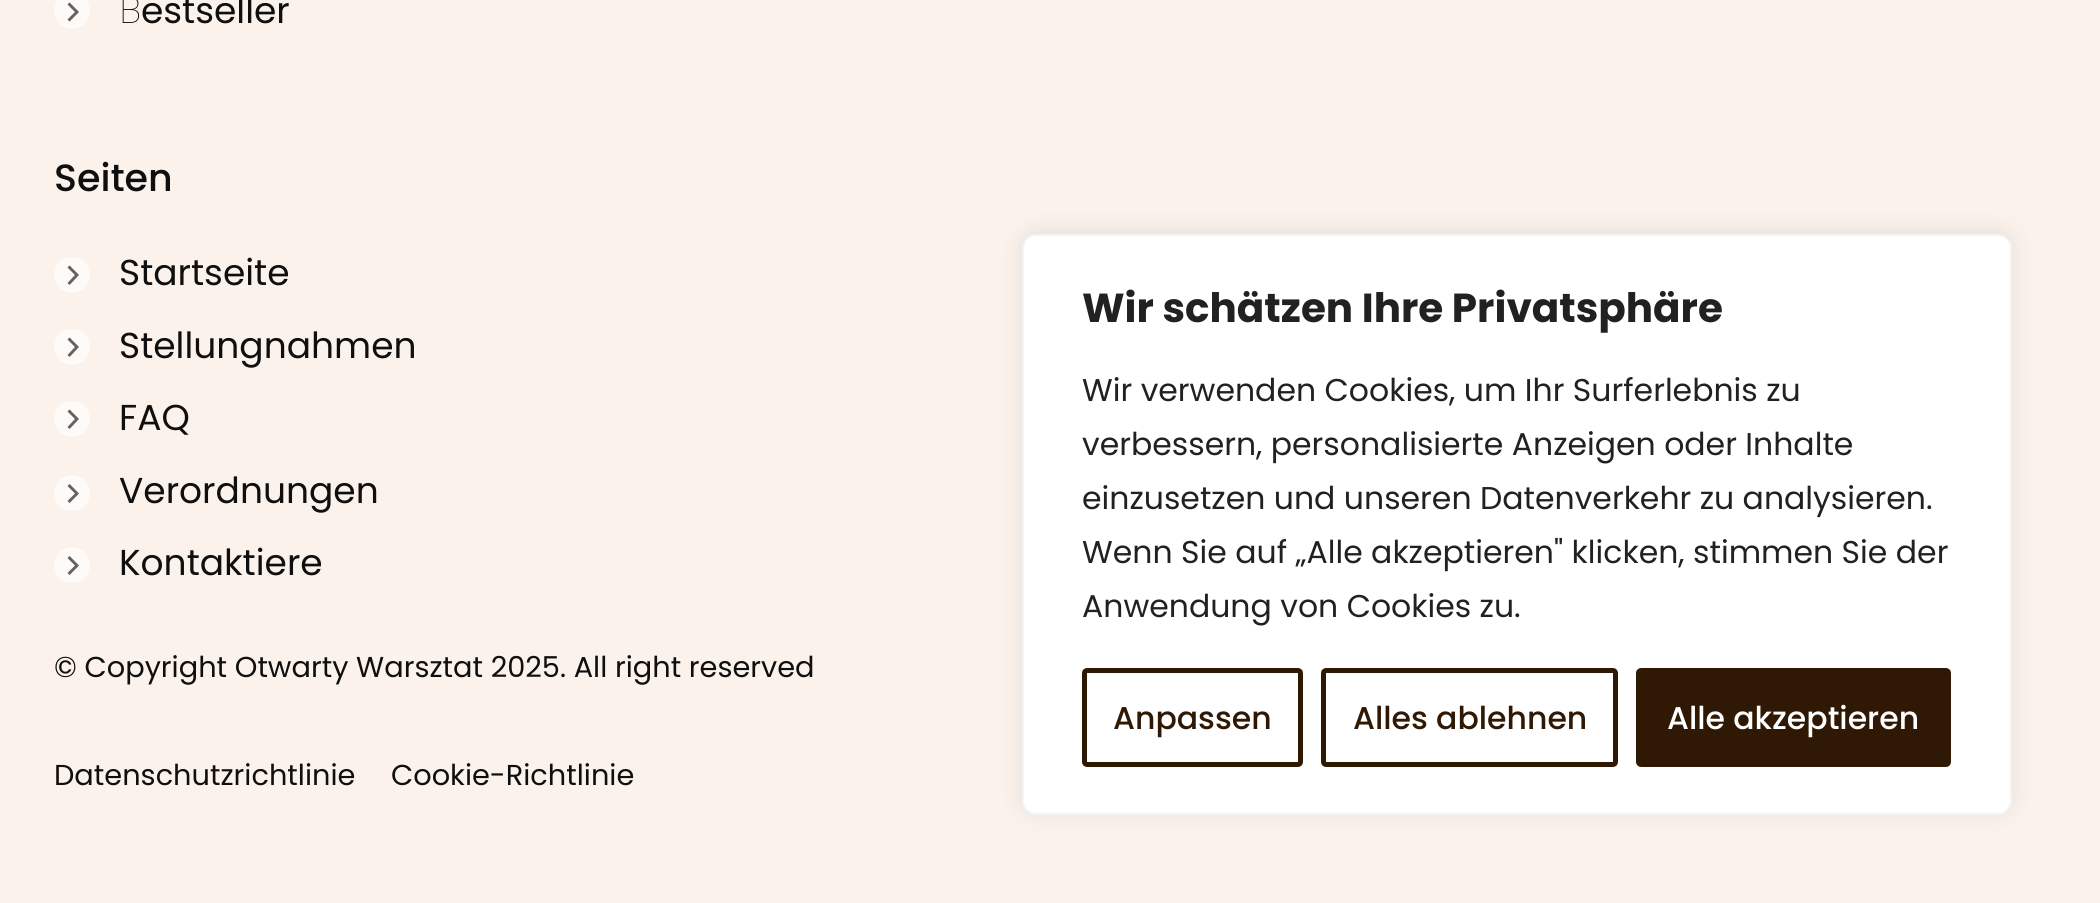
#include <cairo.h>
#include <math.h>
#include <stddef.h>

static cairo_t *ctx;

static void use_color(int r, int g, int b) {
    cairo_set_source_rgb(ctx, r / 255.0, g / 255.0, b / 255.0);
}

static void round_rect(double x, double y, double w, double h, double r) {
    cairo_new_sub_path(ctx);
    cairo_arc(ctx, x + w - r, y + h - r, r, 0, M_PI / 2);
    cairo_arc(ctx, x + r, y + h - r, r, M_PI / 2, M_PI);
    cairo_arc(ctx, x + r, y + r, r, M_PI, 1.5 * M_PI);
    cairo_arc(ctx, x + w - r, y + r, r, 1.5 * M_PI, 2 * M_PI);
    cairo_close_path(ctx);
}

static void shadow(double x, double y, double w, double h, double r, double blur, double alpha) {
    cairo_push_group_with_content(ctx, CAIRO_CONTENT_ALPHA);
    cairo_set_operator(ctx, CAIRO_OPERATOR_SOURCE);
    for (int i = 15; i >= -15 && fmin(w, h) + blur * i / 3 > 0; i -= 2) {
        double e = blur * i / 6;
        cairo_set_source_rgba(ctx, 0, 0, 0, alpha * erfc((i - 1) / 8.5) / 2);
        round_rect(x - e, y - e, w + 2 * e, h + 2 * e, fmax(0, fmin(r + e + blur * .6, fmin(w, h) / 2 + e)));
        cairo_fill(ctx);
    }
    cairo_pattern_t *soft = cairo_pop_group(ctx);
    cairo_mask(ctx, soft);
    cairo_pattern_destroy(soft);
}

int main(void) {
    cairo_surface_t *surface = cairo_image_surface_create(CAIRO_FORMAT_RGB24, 2100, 903);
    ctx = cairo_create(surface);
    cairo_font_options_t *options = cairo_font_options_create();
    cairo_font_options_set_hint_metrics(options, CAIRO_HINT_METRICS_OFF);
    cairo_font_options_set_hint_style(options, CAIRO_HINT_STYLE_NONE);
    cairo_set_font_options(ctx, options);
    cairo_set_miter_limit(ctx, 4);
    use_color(251, 242, 235);
    cairo_paint(ctx);
    use_color(253, 250, 247);
    cairo_arc(ctx, 72, 11, 18, 0, 2 * M_PI);
    cairo_fill(ctx);
    cairo_new_path(ctx);
    cairo_move_to(ctx, 68.5, 3.5);
    cairo_line_to(ctx, 77, 12);
    cairo_line_to(ctx, 68.5, 20.5);
    use_color(100, 97, 94);
    cairo_set_line_width(ctx, 2.9);
    cairo_stroke(ctx);
    cairo_select_font_face(ctx, "Noto Sans Thin", CAIRO_FONT_SLANT_NORMAL, CAIRO_FONT_WEIGHT_NORMAL);
    cairo_set_font_size(ctx, 36);
    use_color(14, 15, 14);
    cairo_move_to(ctx, 119, 23);
    cairo_show_text(ctx, "B");
    cairo_select_font_face(ctx, "Poppins", CAIRO_FONT_SLANT_NORMAL, CAIRO_FONT_WEIGHT_NORMAL);
    cairo_move_to(ctx, 141, 23);
    cairo_show_text(ctx, "estseller");
    cairo_select_font_face(ctx, "Poppins Medium", CAIRO_FONT_SLANT_NORMAL, CAIRO_FONT_WEIGHT_NORMAL);
    cairo_set_font_size(ctx, 38);
    cairo_move_to(ctx, 54, 191);
    cairo_show_text(ctx, "Seiten");
    use_color(253, 250, 247);
    cairo_new_path(ctx);
    cairo_arc(ctx, 72, 275, 18, 0, 2 * M_PI);
    cairo_fill(ctx);
    cairo_new_path(ctx);
    cairo_move_to(ctx, 68.5, 266.5);
    cairo_line_to(ctx, 77, 275);
    cairo_line_to(ctx, 68.5, 284);
    use_color(100, 97, 94);
    cairo_stroke(ctx);
    cairo_select_font_face(ctx, "Poppins", CAIRO_FONT_SLANT_NORMAL, CAIRO_FONT_WEIGHT_NORMAL);
    cairo_set_font_size(ctx, 36);
    use_color(14, 15, 14);
    cairo_move_to(ctx, 119, 285);
    cairo_show_text(ctx, "Startseite");
    use_color(253, 250, 247);
    cairo_new_path(ctx);
    cairo_arc(ctx, 72, 347, 18, 0, 2 * M_PI);
    cairo_fill(ctx);
    cairo_new_path(ctx);
    cairo_move_to(ctx, 68.5, 338.5);
    cairo_line_to(ctx, 77, 347);
    cairo_line_to(ctx, 68.5, 356);
    use_color(100, 97, 94);
    cairo_stroke(ctx);
    use_color(14, 15, 14);
    cairo_move_to(ctx, 119, 358);
    cairo_show_text(ctx, "Stellungnahmen");
    use_color(253, 250, 247);
    cairo_new_path(ctx);
    cairo_arc(ctx, 72, 419, 18, 0, 2 * M_PI);
    cairo_fill(ctx);
    cairo_new_path(ctx);
    cairo_move_to(ctx, 68.5, 410.5);
    cairo_line_to(ctx, 77, 419);
    cairo_line_to(ctx, 68.5, 428);
    use_color(100, 97, 94);
    cairo_stroke(ctx);
    use_color(14, 15, 14);
    cairo_move_to(ctx, 119, 430);
    cairo_show_text(ctx, "FAQ");
    use_color(253, 250, 247);
    cairo_new_path(ctx);
    cairo_arc(ctx, 72, 493, 18, 0, 2 * M_PI);
    cairo_fill(ctx);
    cairo_new_path(ctx);
    cairo_move_to(ctx, 68.5, 485);
    cairo_line_to(ctx, 77, 493.5);
    cairo_line_to(ctx, 68.5, 502);
    use_color(100, 97, 94);
    cairo_stroke(ctx);
    use_color(14, 15, 14);
    cairo_move_to(ctx, 119, 503);
    cairo_show_text(ctx, "Verordnungen");
    use_color(253, 250, 247);
    cairo_new_path(ctx);
    cairo_arc(ctx, 72, 565, 18, 0, 2 * M_PI);
    cairo_fill(ctx);
    cairo_new_path(ctx);
    cairo_move_to(ctx, 68.5, 557);
    cairo_line_to(ctx, 77, 565.5);
    cairo_line_to(ctx, 68.5, 574);
    use_color(100, 97, 94);
    cairo_stroke(ctx);
    use_color(14, 15, 14);
    cairo_move_to(ctx, 119, 575);
    cairo_show_text(ctx, "Kontaktiere");
    cairo_set_font_size(ctx, 28.8);
    cairo_move_to(ctx, 54, 677);
    cairo_show_text(ctx, "© Copyright Otwarty Warsztat 2025. All right reserved");
    cairo_move_to(ctx, 54, 785);
    cairo_show_text(ctx, "Datenschutzrichtlinie");
    cairo_move_to(ctx, 391, 785);
    cairo_show_text(ctx, "Cookie-Richtlinie");
    use_color(172, 171, 171);
    shadow(1022, 232, 990, 580, 14, 11, 0.3);
    use_color(255, 255, 255);
    round_rect(1023, 235, 988, 579, 13);
    cairo_fill_preserve(ctx);
    use_color(244, 244, 244);
    cairo_set_line_width(ctx, 2);
    cairo_stroke(ctx);
    cairo_select_font_face(ctx, "Poppins", CAIRO_FONT_SLANT_NORMAL, CAIRO_FONT_WEIGHT_BOLD);
    cairo_set_font_size(ctx, 40.5);
    use_color(33, 33, 33);
    cairo_move_to(ctx, 1082, 322);
    cairo_show_text(ctx, "Wir schätzen Ihre Privatsphäre");
    cairo_select_font_face(ctx, "Poppins", CAIRO_FONT_SLANT_NORMAL, CAIRO_FONT_WEIGHT_NORMAL);
    cairo_set_font_size(ctx, 31.5);
    cairo_move_to(ctx, 1082, 401);
    cairo_show_text(ctx, "Wir verwenden Cookies, um Ihr Surferlebnis zu");
    cairo_move_to(ctx, 1082, 455);
    cairo_show_text(ctx, "verbessern, personalisierte Anzeigen oder Inhalte");
    cairo_move_to(ctx, 1082, 509);
    cairo_show_text(ctx, "einzusetzen und unseren Datenverkehr zu analysieren.");
    cairo_move_to(ctx, 1082, 563);
    cairo_show_text(ctx, "Wenn Sie auf „Alle akzeptieren\" klicken, stimmen Sie der");
    cairo_move_to(ctx, 1082, 617);
    cairo_show_text(ctx, "Anwendung von Cookies zu.");
    round_rect(1084.5, 670.5, 216, 94, 2.5);
    use_color(48, 25, 4);
    cairo_set_line_width(ctx, 5);
    cairo_stroke(ctx);
    cairo_select_font_face(ctx, "Poppins Medium", CAIRO_FONT_SLANT_NORMAL, CAIRO_FONT_WEIGHT_NORMAL);
    cairo_move_to(ctx, 1113, 729);
    cairo_show_text(ctx, "Anpassen");
    round_rect(1323.5, 670.5, 292, 94, 2.5);
    cairo_stroke(ctx);
    cairo_move_to(ctx, 1353, 729);
    cairo_show_text(ctx, "Alles ablehnen");
    round_rect(1638.5, 670.5, 310, 94, 2.5);
    cairo_fill_preserve(ctx);
    cairo_stroke(ctx);
    use_color(255, 255, 255);
    cairo_move_to(ctx, 1667, 729);
    cairo_show_text(ctx, "Alle akzeptieren");
    cairo_surface_write_to_png(surface, "result.png");
    cairo_font_options_destroy(options);
    cairo_destroy(ctx);
    cairo_surface_destroy(surface);
    return 0;
}
